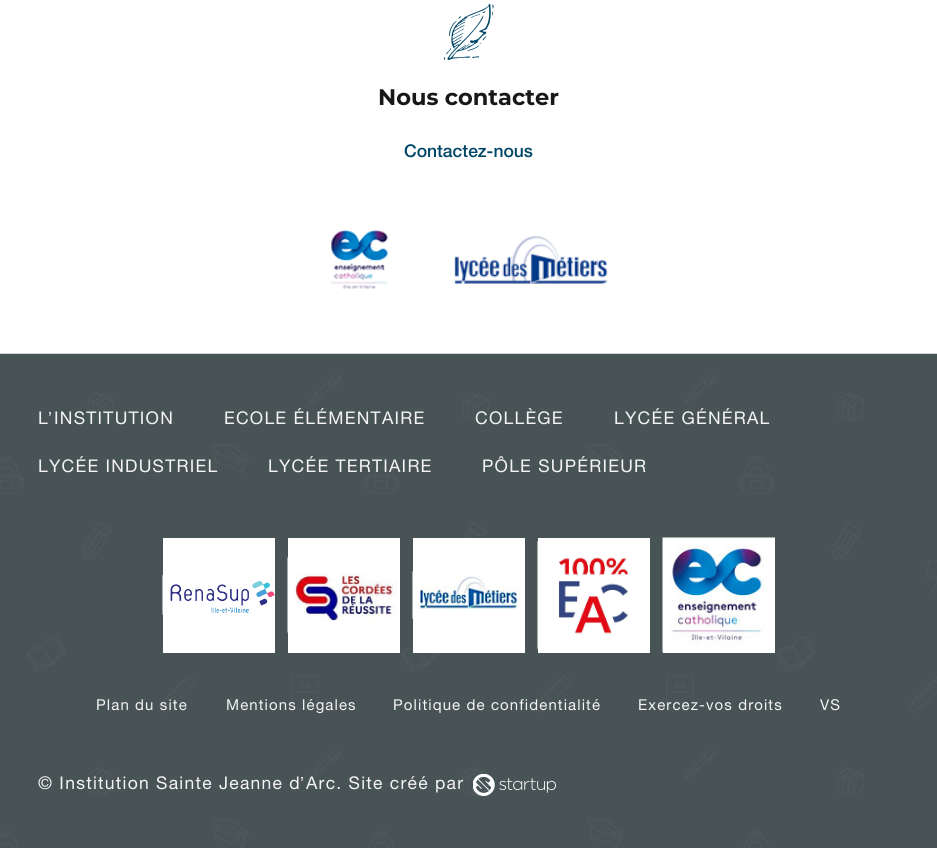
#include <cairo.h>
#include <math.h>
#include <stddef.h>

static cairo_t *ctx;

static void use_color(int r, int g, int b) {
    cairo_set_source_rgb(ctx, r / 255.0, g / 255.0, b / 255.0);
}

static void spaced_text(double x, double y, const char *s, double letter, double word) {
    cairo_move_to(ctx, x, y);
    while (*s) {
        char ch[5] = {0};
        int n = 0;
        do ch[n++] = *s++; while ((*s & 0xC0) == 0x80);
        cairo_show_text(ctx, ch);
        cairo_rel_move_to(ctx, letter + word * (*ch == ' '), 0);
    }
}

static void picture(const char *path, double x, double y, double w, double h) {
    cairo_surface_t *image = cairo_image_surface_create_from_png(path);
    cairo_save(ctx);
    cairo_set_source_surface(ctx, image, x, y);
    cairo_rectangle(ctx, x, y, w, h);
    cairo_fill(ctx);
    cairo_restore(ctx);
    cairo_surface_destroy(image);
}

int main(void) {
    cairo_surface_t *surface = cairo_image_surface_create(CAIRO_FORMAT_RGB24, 937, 848);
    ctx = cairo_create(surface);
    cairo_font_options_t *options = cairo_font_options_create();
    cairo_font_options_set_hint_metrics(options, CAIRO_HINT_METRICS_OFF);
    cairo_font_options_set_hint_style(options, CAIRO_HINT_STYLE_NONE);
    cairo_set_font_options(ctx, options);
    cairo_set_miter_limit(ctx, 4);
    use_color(255, 255, 255);
    cairo_paint(ctx);
    picture("img1.png", 444, 4, 50, 56);
    cairo_select_font_face(ctx, "Montserrat Thin", CAIRO_FONT_SLANT_NORMAL, CAIRO_FONT_WEIGHT_NORMAL);
    cairo_set_font_size(ctx, 22.5);
    use_color(24, 24, 24);
    cairo_move_to(ctx, 378, 105);
    cairo_show_text(ctx, "Nous contacter");
    cairo_select_font_face(ctx, "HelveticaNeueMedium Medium", CAIRO_FONT_SLANT_NORMAL, CAIRO_FONT_WEIGHT_NORMAL);
    cairo_set_font_size(ctx, 17.5);
    use_color(0, 70, 103);
    cairo_move_to(ctx, 404, 157);
    cairo_show_text(ctx, "Contactez-nous");
    picture("img2.png", 331, 229, 277, 60);
    picture("img3.png", 0, 353, 937, 495);
    cairo_select_font_face(ctx, "Helvetica Neue", CAIRO_FONT_SLANT_NORMAL, CAIRO_FONT_WEIGHT_NORMAL);
    use_color(244, 244, 244);
    spaced_text(38, 424, "L", 1.25, 0);
    cairo_select_font_face(ctx, "Liberation Sans", CAIRO_FONT_SLANT_NORMAL, CAIRO_FONT_WEIGHT_NORMAL);
    spaced_text(48, 424, "’", 1.25, 0);
    cairo_select_font_face(ctx, "Helvetica Neue", CAIRO_FONT_SLANT_NORMAL, CAIRO_FONT_WEIGHT_NORMAL);
    spaced_text(54, 424, "INSTITUTION", 1.25, 0);
    spaced_text(224, 424, "ECOLE ÉLÉMENTAIRE", 1.25, 0);
    spaced_text(475, 424, "COLLÈGE", 1.25, 0);
    spaced_text(614, 424, "LYCÉE GÉNÉRAL", 1.25, 0);
    spaced_text(38, 472, "LYCÉE INDUSTRIEL", 1.25, 0);
    spaced_text(268, 472, "LYCÉE TERTIAIRE", 1.25, 0);
    spaced_text(482, 472, "PÔLE SUPÉRIEUR", 1.25, 0);
    use_color(255, 255, 255);
    cairo_rectangle(ctx, 163, 538, 112, 115);
    cairo_fill(ctx);
    picture("img4.png", 162, 575, 113, 40);
    cairo_rectangle(ctx, 288, 538, 112, 115);
    cairo_fill(ctx);
    picture("img5.png", 287, 557, 110, 76);
    cairo_rectangle(ctx, 413, 538, 112, 115);
    cairo_fill(ctx);
    picture("img6.png", 412, 571, 108, 48);
    cairo_rectangle(ctx, 538, 538, 112, 115);
    cairo_fill(ctx);
    picture("img7.png", 537, 541, 92, 108);
    cairo_rectangle(ctx, 663, 652, 112, 1);
    cairo_fill(ctx);
    picture("img8.png", 662, 537, 113, 116);
    cairo_set_font_size(ctx, 15);
    use_color(244, 244, 244);
    spaced_text(96, 710, "Plan du site", 1.1, 0);
    spaced_text(226, 710, "Mentions légales", 1.1, 0);
    spaced_text(393, 710, "Politique de confidentialité", 1.1, 0);
    spaced_text(638, 710, "Exercez-vos droits", 1.1, 0);
    spaced_text(820, 710, "VS", 1.1, 0);
    cairo_set_font_size(ctx, 17.5);
    spaced_text(38, 789, "© Institution Sainte Jeanne d", 1.25, 0);
    cairo_select_font_face(ctx, "Liberation Sans", CAIRO_FONT_SLANT_NORMAL, CAIRO_FONT_WEIGHT_NORMAL);
    spaced_text(300, 789, "’", 1.25, 0);
    cairo_select_font_face(ctx, "Helvetica Neue", CAIRO_FONT_SLANT_NORMAL, CAIRO_FONT_WEIGHT_NORMAL);
    spaced_text(306, 789, "Arc. Site créé par", 1.25, 0);
    picture("img9.png", 473, 774, 83, 22);
    cairo_surface_write_to_png(surface, "result.png");
    cairo_font_options_destroy(options);
    cairo_destroy(ctx);
    cairo_surface_destroy(surface);
    return 0;
}
